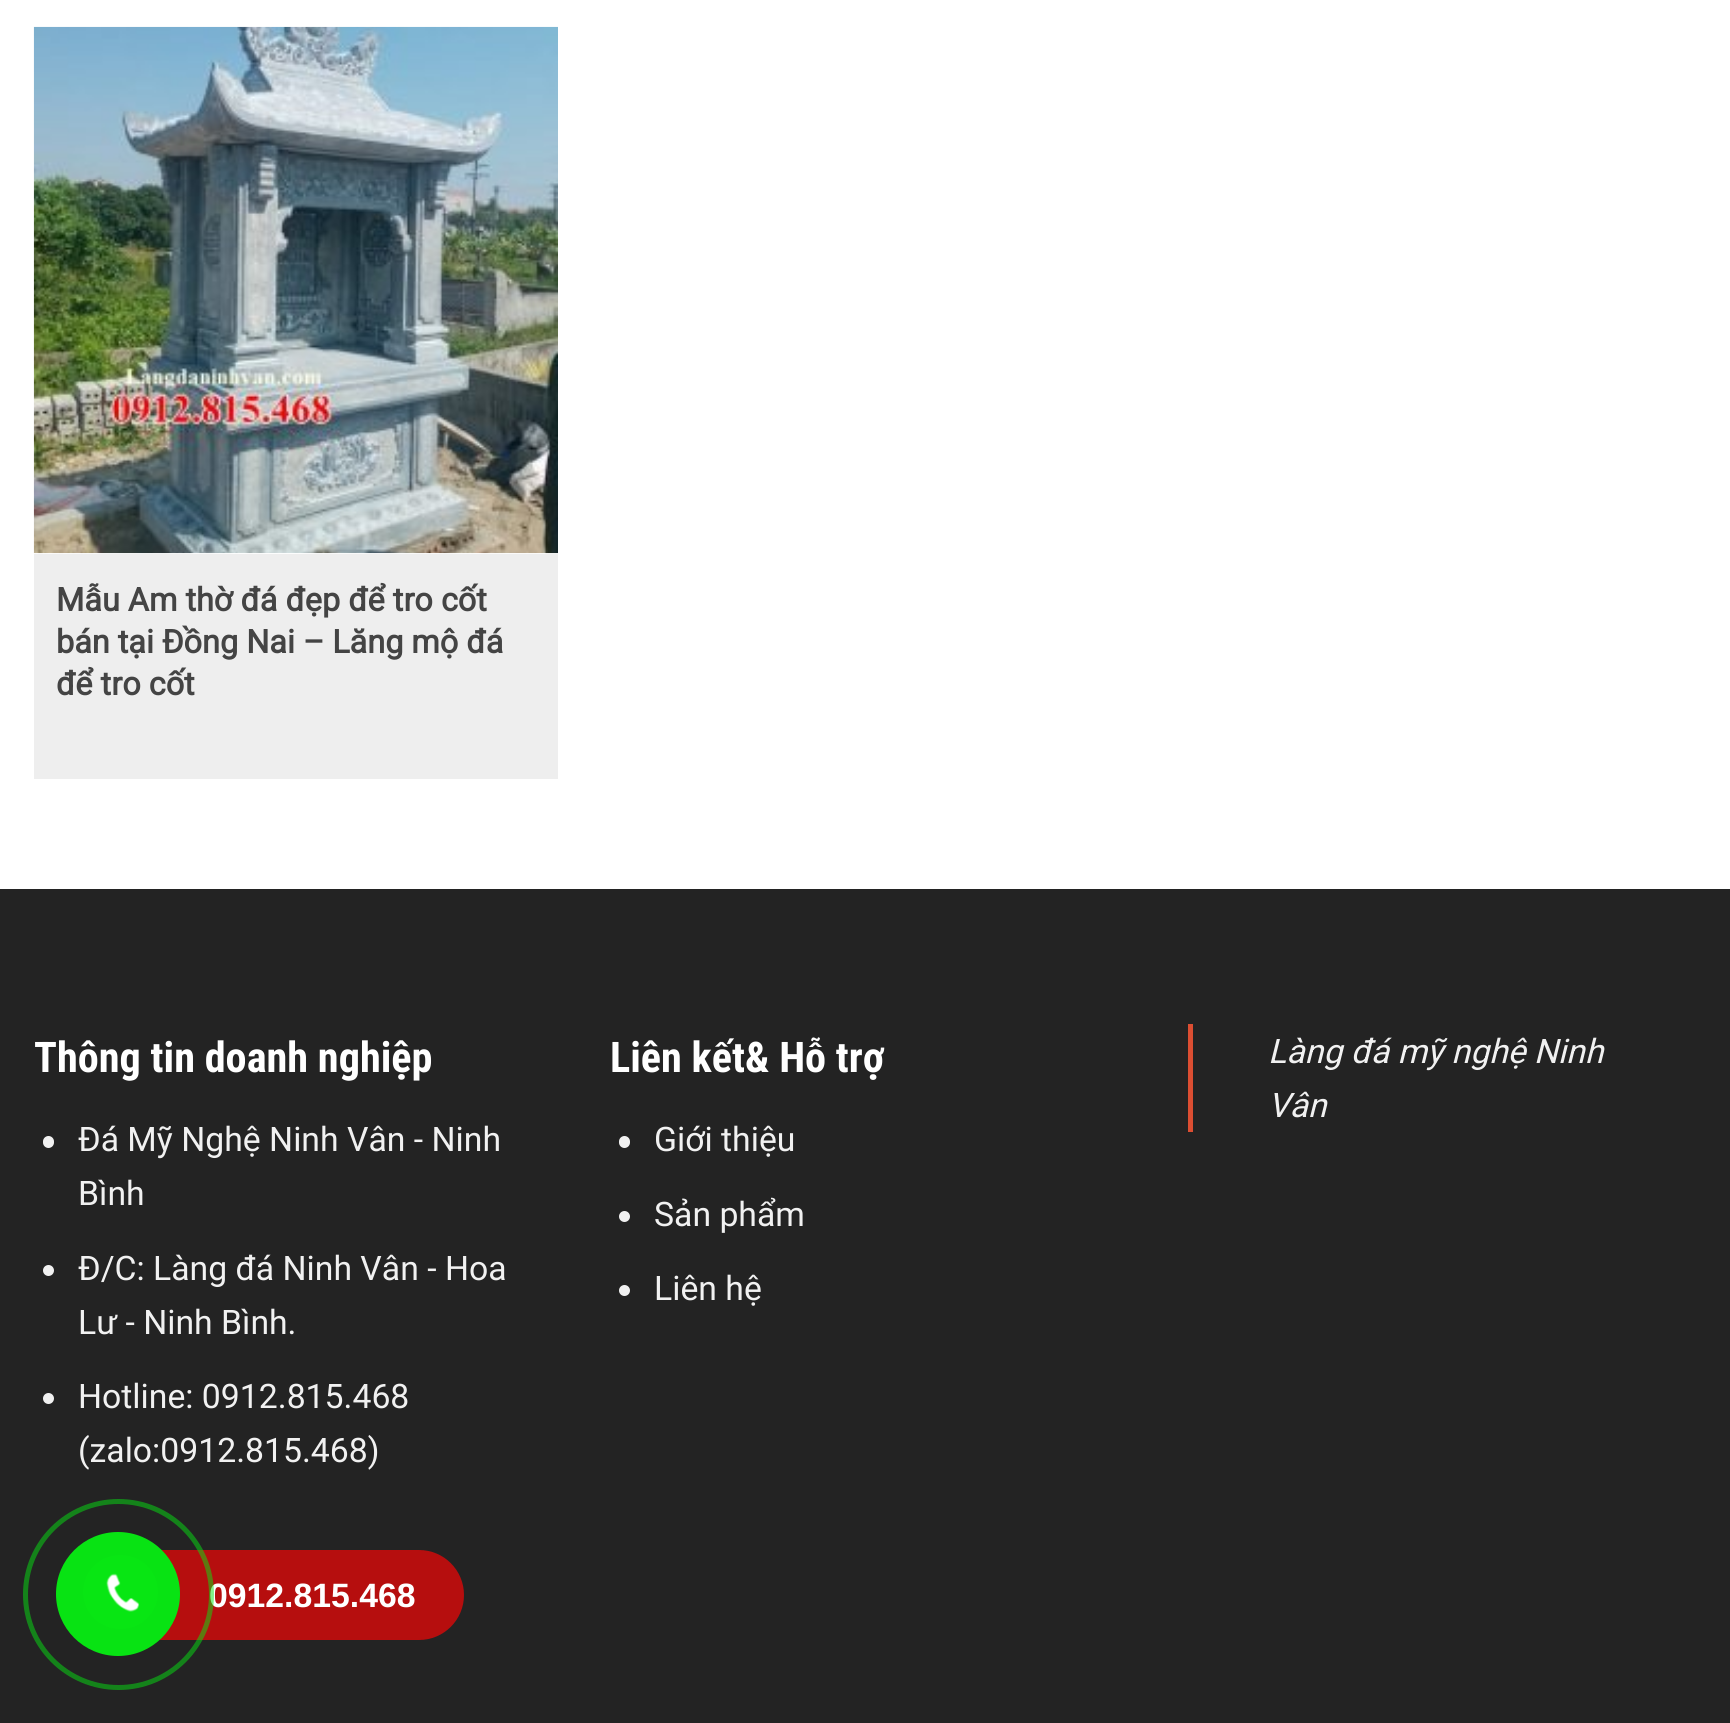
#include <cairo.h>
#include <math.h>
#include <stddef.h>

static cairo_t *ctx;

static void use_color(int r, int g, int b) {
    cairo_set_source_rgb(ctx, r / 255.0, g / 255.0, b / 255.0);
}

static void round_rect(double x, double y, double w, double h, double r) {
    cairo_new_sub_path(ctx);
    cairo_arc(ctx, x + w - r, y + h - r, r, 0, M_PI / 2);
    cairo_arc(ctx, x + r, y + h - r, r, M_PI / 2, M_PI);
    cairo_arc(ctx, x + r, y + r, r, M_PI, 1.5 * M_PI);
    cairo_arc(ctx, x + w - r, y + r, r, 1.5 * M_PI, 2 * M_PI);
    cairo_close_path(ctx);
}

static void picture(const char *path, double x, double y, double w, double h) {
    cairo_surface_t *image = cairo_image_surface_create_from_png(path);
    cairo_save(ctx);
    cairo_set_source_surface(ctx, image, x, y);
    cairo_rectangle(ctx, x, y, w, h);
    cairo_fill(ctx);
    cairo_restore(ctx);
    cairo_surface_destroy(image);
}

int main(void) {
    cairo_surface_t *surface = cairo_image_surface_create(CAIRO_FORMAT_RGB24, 1730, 1723);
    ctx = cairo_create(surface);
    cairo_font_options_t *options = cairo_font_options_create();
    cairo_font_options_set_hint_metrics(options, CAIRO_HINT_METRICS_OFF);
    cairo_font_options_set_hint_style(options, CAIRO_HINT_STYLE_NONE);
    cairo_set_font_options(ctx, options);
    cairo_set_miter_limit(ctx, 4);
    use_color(255, 255, 255);
    cairo_paint(ctx);
    picture("img1.png", 33, 26, 525, 528);
    use_color(238, 238, 238);
    cairo_rectangle(ctx, 34, 554, 524, 225);
    cairo_fill(ctx);
    cairo_select_font_face(ctx, "Roboto", CAIRO_FONT_SLANT_NORMAL, CAIRO_FONT_WEIGHT_BOLD);
    cairo_set_font_size(ctx, 32.4);
    use_color(68, 68, 68);
    cairo_move_to(ctx, 56, 611);
    cairo_show_text(ctx, "Mẫu Am thờ đá đẹp để tro cốt");
    cairo_move_to(ctx, 56, 653);
    cairo_show_text(ctx, "bán tại Đồng Nai – Lăng mộ đá");
    cairo_move_to(ctx, 56, 695);
    cairo_show_text(ctx, "để tro cốt");
    use_color(35, 35, 35);
    cairo_rectangle(ctx, 0, 889, 1730, 834);
    cairo_fill(ctx);
    cairo_select_font_face(ctx, "Roboto Condensed", CAIRO_FONT_SLANT_NORMAL, CAIRO_FONT_WEIGHT_BOLD);
    cairo_set_font_size(ctx, 42.25);
    use_color(255, 255, 255);
    cairo_move_to(ctx, 34, 1072);
    cairo_show_text(ctx, "Thông tin doanh nghiệp");
    use_color(241, 241, 241);
    round_rect(43, 1136, 11, 12, 5.5);
    cairo_fill(ctx);
    cairo_select_font_face(ctx, "Roboto", CAIRO_FONT_SLANT_NORMAL, CAIRO_FONT_WEIGHT_NORMAL);
    cairo_set_font_size(ctx, 33.75);
    cairo_move_to(ctx, 78, 1151);
    cairo_show_text(ctx, "Đá Mỹ Nghệ Ninh Vân - Ninh");
    cairo_move_to(ctx, 78, 1205);
    cairo_show_text(ctx, "Bình");
    cairo_new_path(ctx);
    cairo_arc(ctx, 48.5, 1270.5, 5.5, 0, 2 * M_PI);
    cairo_fill(ctx);
    cairo_move_to(ctx, 78, 1280);
    cairo_show_text(ctx, "Đ/C: Làng đá Ninh Vân - Hoa");
    cairo_move_to(ctx, 78, 1334);
    cairo_show_text(ctx, "Lư - Ninh Bình.");
    cairo_new_path(ctx);
    cairo_arc(ctx, 48.5, 1398.5, 5.5, 0, 2 * M_PI);
    cairo_fill(ctx);
    cairo_move_to(ctx, 78, 1408);
    cairo_show_text(ctx, "Hotline: 0912.815.468");
    cairo_move_to(ctx, 78, 1462);
    cairo_show_text(ctx, "(zalo:0912.815.468)");
    cairo_select_font_face(ctx, "Roboto Condensed", CAIRO_FONT_SLANT_NORMAL, CAIRO_FONT_WEIGHT_BOLD);
    cairo_set_font_size(ctx, 42.25);
    use_color(255, 255, 255);
    cairo_move_to(ctx, 610, 1072);
    cairo_show_text(ctx, "Liên kết& Hỗ trợ");
    use_color(241, 241, 241);
    round_rect(619, 1136, 11, 12, 5.5);
    cairo_fill(ctx);
    cairo_select_font_face(ctx, "Roboto", CAIRO_FONT_SLANT_NORMAL, CAIRO_FONT_WEIGHT_NORMAL);
    cairo_set_font_size(ctx, 33.75);
    cairo_move_to(ctx, 654, 1151);
    cairo_show_text(ctx, "Giới thiệu");
    cairo_new_path(ctx);
    cairo_arc(ctx, 624.5, 1216.5, 5.5, 0, 2 * M_PI);
    cairo_fill(ctx);
    cairo_move_to(ctx, 654, 1226);
    cairo_show_text(ctx, "Sản phẩm");
    cairo_new_path(ctx);
    cairo_arc(ctx, 624.5, 1290.5, 5.5, 0, 2 * M_PI);
    cairo_fill(ctx);
    cairo_move_to(ctx, 654, 1300);
    cairo_show_text(ctx, "Liên hệ");
    use_color(220, 78, 50);
    cairo_rectangle(ctx, 1188, 1024, 5, 108);
    cairo_fill(ctx);
    cairo_select_font_face(ctx, "Roboto", CAIRO_FONT_SLANT_ITALIC, CAIRO_FONT_WEIGHT_NORMAL);
    use_color(241, 241, 241);
    cairo_move_to(ctx, 1268, 1063);
    cairo_show_text(ctx, "Làng đá mỹ nghệ Ninh");
    cairo_move_to(ctx, 1268, 1117);
    cairo_show_text(ctx, "Vân");
    cairo_set_source_rgba(ctx, 0.902, 0.031, 0.031, 0.75);
    round_rect(74, 1550, 390, 90, 45);
    cairo_fill(ctx);
    cairo_select_font_face(ctx, "Liberation Sans", CAIRO_FONT_SLANT_NORMAL, CAIRO_FONT_WEIGHT_BOLD);
    use_color(255, 255, 255);
    cairo_move_to(ctx, 209, 1607);
    cairo_show_text(ctx, "0912.815.468");
    cairo_new_path(ctx);
    cairo_arc(ctx, 118.5, 1594.5, 93, 0, 2 * M_PI);
    cairo_set_source_rgba(ctx, 0.031, 0.898, 0.075, 0.5);
    cairo_set_line_width(ctx, 5);
    cairo_stroke(ctx);
    use_color(8, 227, 19);
    cairo_arc(ctx, 118, 1594, 62, 0, 2 * M_PI);
    cairo_fill(ctx);
    use_color(8, 230, 19);
    round_rect(83, 1555, 75, 74, 37);
    cairo_fill(ctx);
    picture("img2.png", 106, 1573, 34, 39);
    cairo_surface_write_to_png(surface, "result.png");
    cairo_font_options_destroy(options);
    cairo_destroy(ctx);
    cairo_surface_destroy(surface);
    return 0;
}
